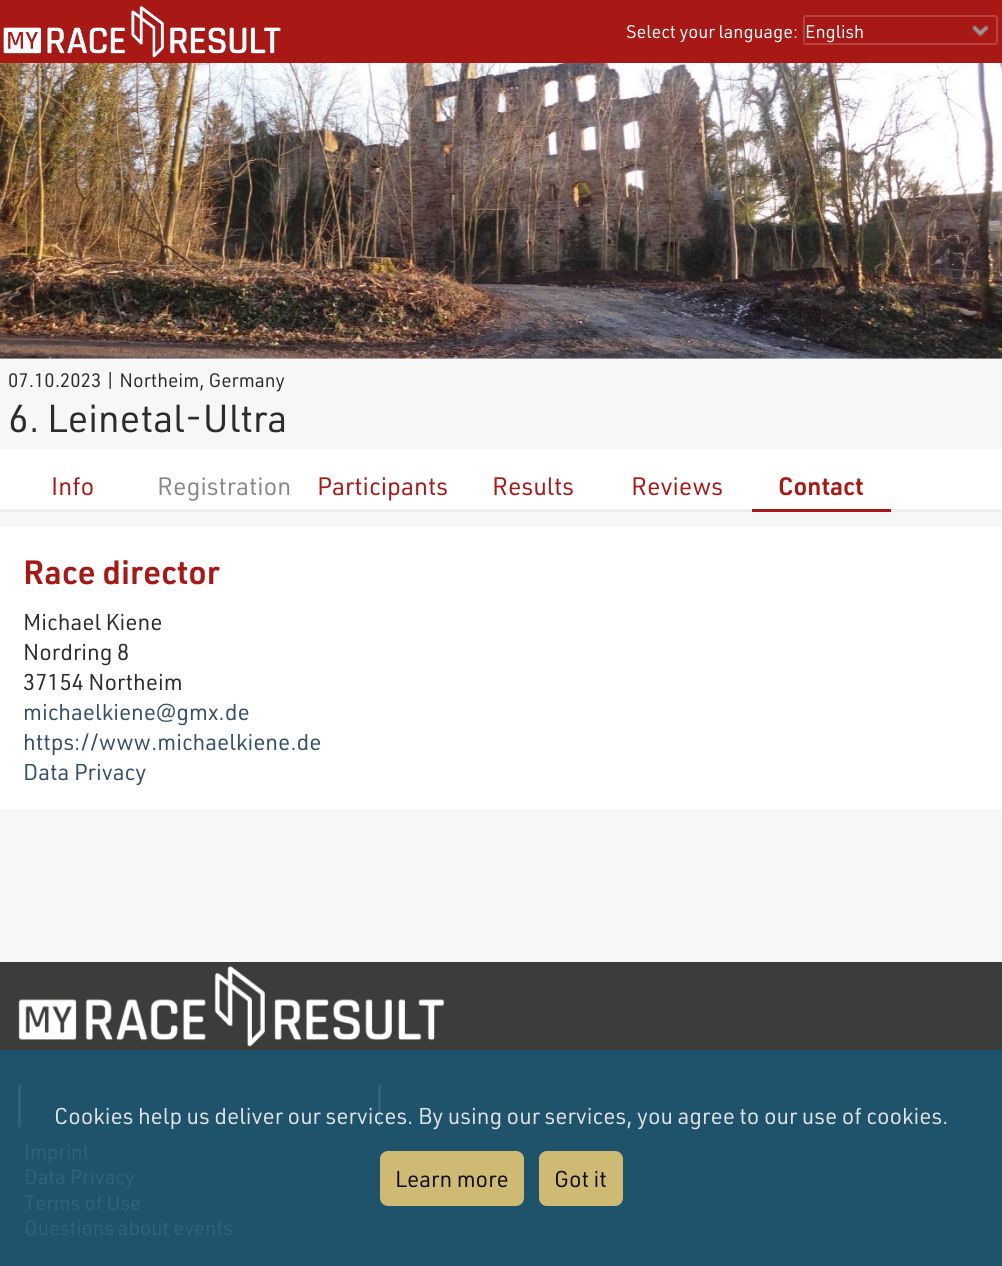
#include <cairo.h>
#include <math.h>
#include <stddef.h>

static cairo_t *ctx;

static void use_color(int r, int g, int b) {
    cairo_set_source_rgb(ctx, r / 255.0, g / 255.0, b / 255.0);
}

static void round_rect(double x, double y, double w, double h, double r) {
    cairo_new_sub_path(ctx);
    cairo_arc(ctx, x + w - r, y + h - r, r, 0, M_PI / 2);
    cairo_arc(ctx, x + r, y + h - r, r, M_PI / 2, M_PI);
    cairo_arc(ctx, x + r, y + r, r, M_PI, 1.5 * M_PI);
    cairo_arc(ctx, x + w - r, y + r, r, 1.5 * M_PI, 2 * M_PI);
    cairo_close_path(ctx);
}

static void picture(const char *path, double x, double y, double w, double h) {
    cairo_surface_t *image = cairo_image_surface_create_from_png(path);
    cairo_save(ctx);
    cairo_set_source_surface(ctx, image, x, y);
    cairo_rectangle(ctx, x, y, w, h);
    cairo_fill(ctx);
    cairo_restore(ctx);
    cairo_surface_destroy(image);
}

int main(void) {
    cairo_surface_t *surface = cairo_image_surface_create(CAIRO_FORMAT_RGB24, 1002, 1266);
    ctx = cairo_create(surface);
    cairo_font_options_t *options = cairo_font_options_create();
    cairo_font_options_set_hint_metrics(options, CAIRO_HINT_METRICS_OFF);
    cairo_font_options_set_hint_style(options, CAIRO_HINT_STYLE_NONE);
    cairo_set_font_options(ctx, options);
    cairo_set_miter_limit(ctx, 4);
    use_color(247, 247, 247);
    cairo_paint(ctx);
    use_color(168, 24, 21);
    cairo_rectangle(ctx, 0, 0, 1002, 63);
    cairo_fill(ctx);
    picture("img1.png", 3, 6, 278, 52);
    cairo_select_font_face(ctx, "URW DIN", CAIRO_FONT_SLANT_NORMAL, CAIRO_FONT_WEIGHT_NORMAL);
    cairo_set_font_size(ctx, 18);
    use_color(255, 255, 255);
    cairo_move_to(ctx, 626, 38);
    cairo_show_text(ctx, "Select your language:");
    picture("img2.png", 971, 25, 18, 12);
    round_rect(804, 16, 193, 28, 2);
    use_color(183, 67, 64);
    cairo_stroke(ctx);
    use_color(255, 255, 255);
    cairo_move_to(ctx, 805, 38);
    cairo_show_text(ctx, "English");
    picture("img3.png", 0, 63, 1002, 296);
    cairo_set_font_size(ctx, 19.1);
    use_color(44, 44, 44);
    cairo_move_to(ctx, 8, 387);
    cairo_show_text(ctx, "07.10.2023 | Northeim, Germany");
    cairo_set_font_size(ctx, 38.25);
    cairo_move_to(ctx, 8, 432);
    cairo_show_text(ctx, "6. Leinetal-Ultra");
    use_color(255, 255, 255);
    cairo_rectangle(ctx, 0, 449, 1002, 60);
    cairo_fill(ctx);
    use_color(238, 238, 238);
    cairo_rectangle(ctx, 0, 509, 1002, 3);
    cairo_fill(ctx);
    cairo_set_font_size(ctx, 24.75);
    use_color(168, 24, 21);
    cairo_move_to(ctx, 51, 495);
    cairo_show_text(ctx, "Info");
    use_color(136, 136, 136);
    cairo_move_to(ctx, 157, 495);
    cairo_show_text(ctx, "Registration");
    use_color(168, 24, 21);
    cairo_move_to(ctx, 317, 495);
    cairo_show_text(ctx, "Participants");
    cairo_move_to(ctx, 492, 495);
    cairo_show_text(ctx, "Results");
    cairo_move_to(ctx, 631, 495);
    cairo_show_text(ctx, "Reviews");
    cairo_rectangle(ctx, 752, 509, 139, 3);
    cairo_fill(ctx);
    cairo_select_font_face(ctx, "URW DIN SemiBold", CAIRO_FONT_SLANT_NORMAL, CAIRO_FONT_WEIGHT_NORMAL);
    cairo_move_to(ctx, 778, 495);
    cairo_show_text(ctx, "Contact");
    use_color(255, 255, 255);
    cairo_rectangle(ctx, 0, 527, 1002, 282);
    cairo_fill(ctx);
    cairo_set_font_size(ctx, 33);
    use_color(168, 24, 21);
    cairo_move_to(ctx, 23, 584);
    cairo_show_text(ctx, "Race director");
    cairo_select_font_face(ctx, "URW DIN", CAIRO_FONT_SLANT_NORMAL, CAIRO_FONT_WEIGHT_NORMAL);
    cairo_set_font_size(ctx, 22.5);
    use_color(44, 44, 44);
    cairo_move_to(ctx, 23, 630);
    cairo_show_text(ctx, "Michael Kiene");
    cairo_move_to(ctx, 23, 660);
    cairo_show_text(ctx, "Nordring 8");
    cairo_move_to(ctx, 23, 690);
    cairo_show_text(ctx, "37154 Northeim");
    use_color(53, 79, 108);
    cairo_move_to(ctx, 23, 720);
    cairo_show_text(ctx, "michaelkiene@gmx.de");
    cairo_move_to(ctx, 23, 750);
    cairo_show_text(ctx, "https://www.michaelkiene.de");
    cairo_move_to(ctx, 23, 780);
    cairo_show_text(ctx, "Data Privacy");
    use_color(31, 82, 107);
    cairo_rectangle(ctx, 0, 1050, 1002, 216);
    cairo_fill(ctx);
    use_color(47, 98, 123);
    cairo_rectangle(ctx, 378, 1085, 3, 42);
    cairo_fill(ctx);
    use_color(222, 226, 228);
    cairo_move_to(ctx, 54, 1124);
    cairo_show_text(ctx, "Cookies help us deliver our services. By using our services, you agree to our use of cookies.");
    cairo_set_source_rgba(ctx, 0.867, 0.765, 0.455, 0.92);
    round_rect(380, 1151, 144, 55, 8);
    cairo_fill(ctx);
    use_color(16, 15, 9);
    cairo_move_to(ctx, 395, 1187);
    cairo_show_text(ctx, "Learn more");
    cairo_set_source_rgba(ctx, 0.867, 0.765, 0.455, 0.92);
    round_rect(539, 1151, 84, 55, 8);
    cairo_fill(ctx);
    use_color(16, 15, 9);
    cairo_move_to(ctx, 554, 1187);
    cairo_show_text(ctx, "Got it");
    use_color(60, 60, 59);
    cairo_rectangle(ctx, 0, 962, 1002, 88);
    cairo_fill(ctx);
    picture("img4.png", 18, 966, 426, 81);
    use_color(47, 98, 123);
    cairo_rectangle(ctx, 18, 1085, 3, 42);
    cairo_fill(ctx);
    cairo_set_font_size(ctx, 20.25);
    cairo_move_to(ctx, 24, 1159);
    cairo_show_text(ctx, "Imprint");
    cairo_move_to(ctx, 24, 1184);
    cairo_show_text(ctx, "Data Privacy");
    cairo_move_to(ctx, 24, 1210);
    cairo_show_text(ctx, "Terms of Use");
    cairo_move_to(ctx, 24, 1235);
    cairo_show_text(ctx, "Questions about events");
    cairo_surface_write_to_png(surface, "result.png");
    cairo_font_options_destroy(options);
    cairo_destroy(ctx);
    cairo_surface_destroy(surface);
    return 0;
}
